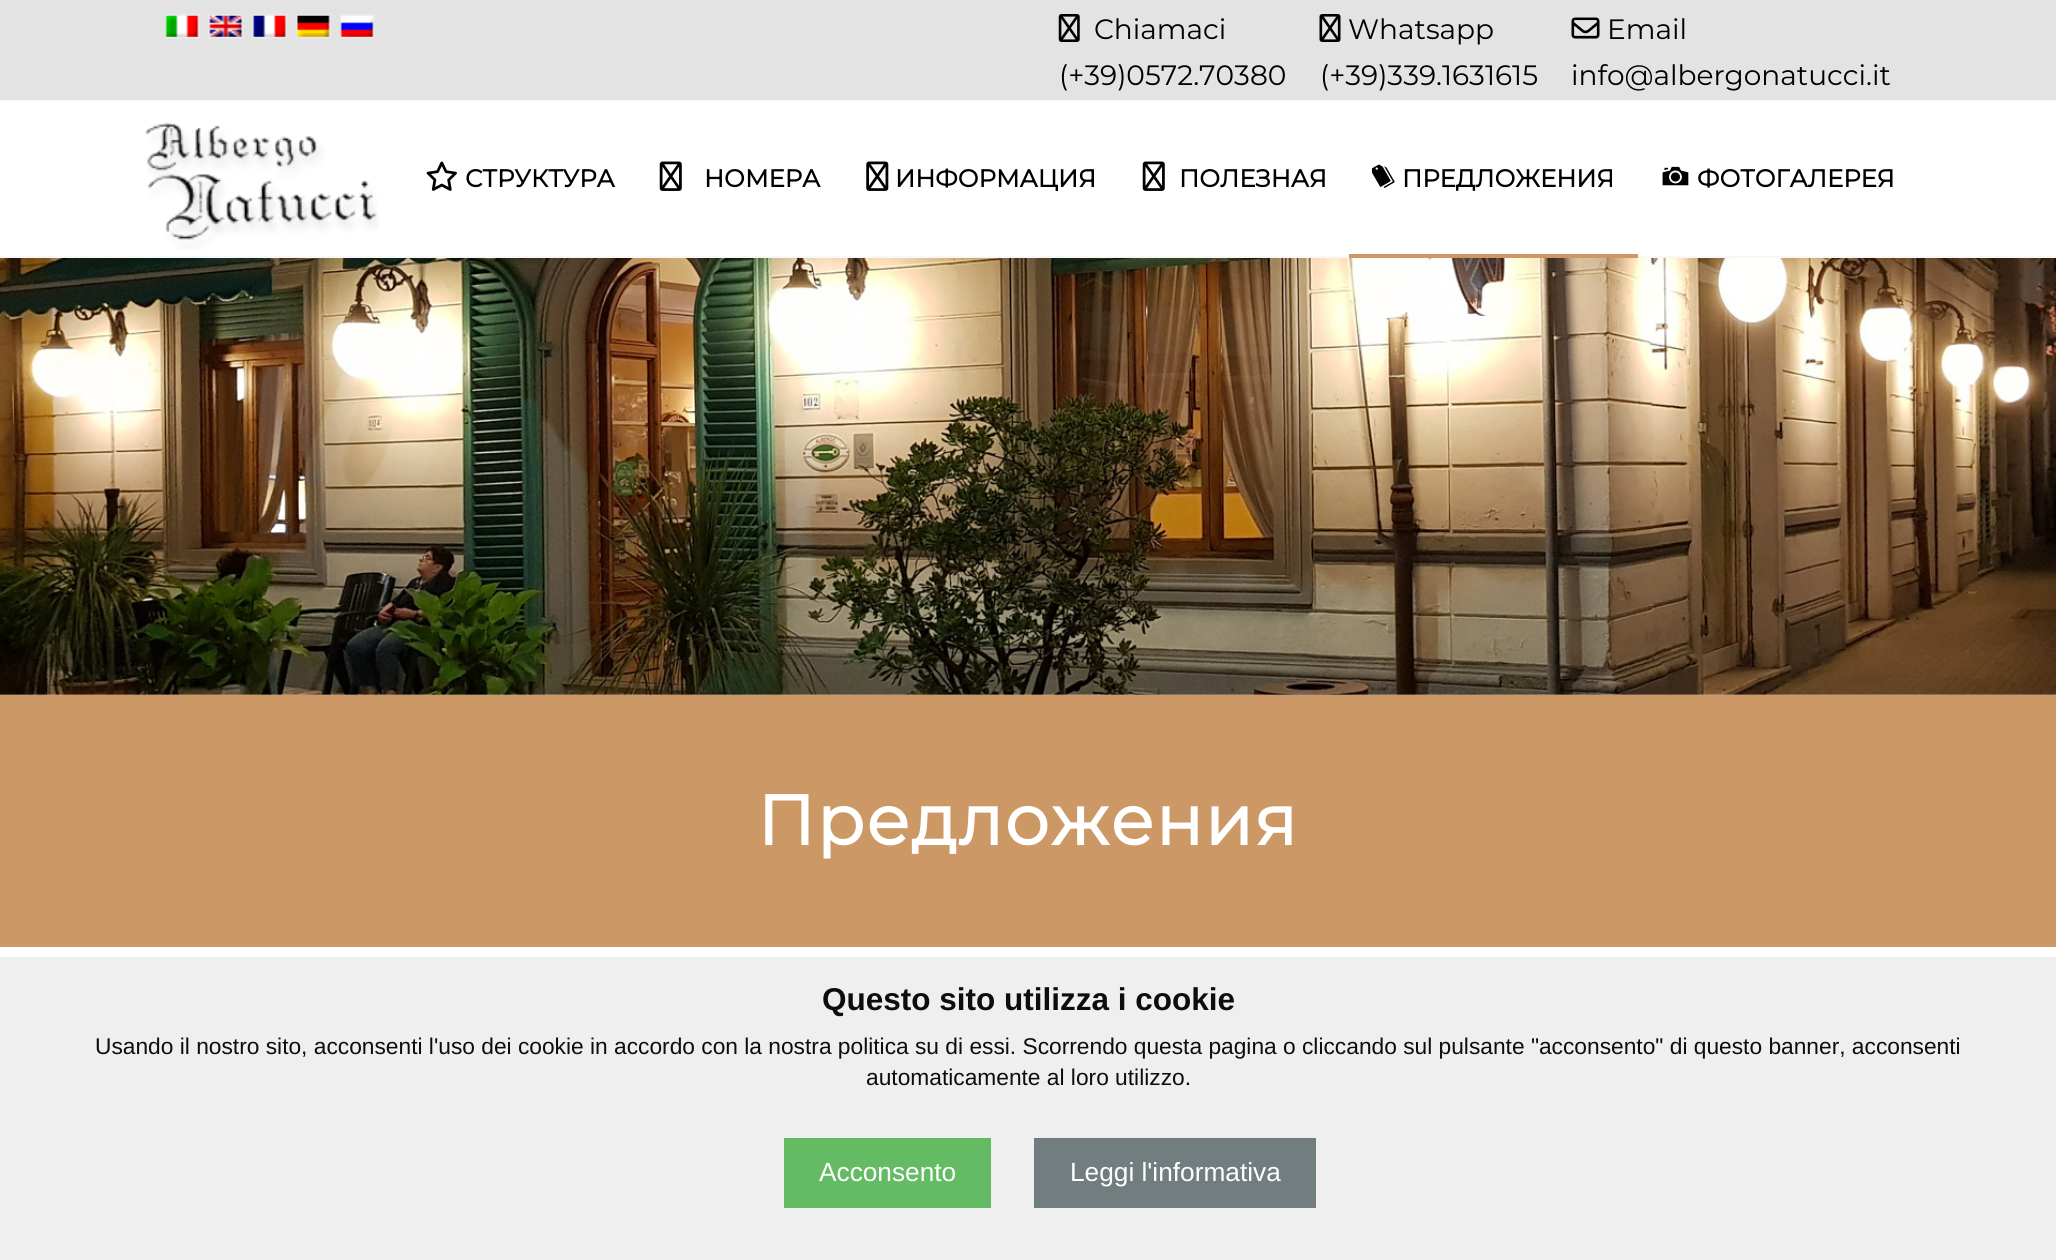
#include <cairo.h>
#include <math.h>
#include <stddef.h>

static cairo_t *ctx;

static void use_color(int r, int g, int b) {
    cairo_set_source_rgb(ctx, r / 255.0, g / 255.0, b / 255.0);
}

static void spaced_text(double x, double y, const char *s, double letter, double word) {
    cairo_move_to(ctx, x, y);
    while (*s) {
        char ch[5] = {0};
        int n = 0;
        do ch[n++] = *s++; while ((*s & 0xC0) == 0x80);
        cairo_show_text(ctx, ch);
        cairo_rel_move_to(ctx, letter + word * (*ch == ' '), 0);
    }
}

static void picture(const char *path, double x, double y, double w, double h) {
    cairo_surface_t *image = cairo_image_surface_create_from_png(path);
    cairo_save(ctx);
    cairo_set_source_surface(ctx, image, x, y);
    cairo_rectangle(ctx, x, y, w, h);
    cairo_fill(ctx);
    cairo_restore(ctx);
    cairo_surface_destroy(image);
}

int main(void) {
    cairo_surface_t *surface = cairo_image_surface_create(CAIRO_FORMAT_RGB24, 2056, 1260);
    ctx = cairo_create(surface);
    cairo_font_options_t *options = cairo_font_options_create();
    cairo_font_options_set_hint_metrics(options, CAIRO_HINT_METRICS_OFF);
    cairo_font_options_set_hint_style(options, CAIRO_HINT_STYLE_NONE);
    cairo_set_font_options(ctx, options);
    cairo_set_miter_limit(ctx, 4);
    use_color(255, 255, 255);
    cairo_paint(ctx);
    use_color(227, 227, 227);
    cairo_rectangle(ctx, 0, 0, 2056, 100);
    cairo_fill(ctx);
    use_color(248, 248, 248);
    cairo_rectangle(ctx, 0, 100, 2056, 2);
    cairo_fill(ctx);
    cairo_rectangle(ctx, 166, 15, 33, 23);
    use_color(233, 233, 233);
    cairo_stroke(ctx);
    picture("img1.png", 165, 15, 34, 22);
    cairo_rectangle(ctx, 209, 15, 33, 23);
    cairo_stroke(ctx);
    picture("img2.png", 209, 15, 33, 22);
    cairo_rectangle(ctx, 253, 15, 33, 23);
    cairo_stroke(ctx);
    picture("img3.png", 253, 15, 33, 22);
    cairo_rectangle(ctx, 297, 15, 33, 23);
    cairo_stroke(ctx);
    picture("img4.png", 297, 15, 33, 22);
    cairo_rectangle(ctx, 341, 15, 33, 23);
    cairo_stroke(ctx);
    picture("img5.png", 340, 15, 34, 22);
    picture("img6.png", 1058, 14, 22, 28);
    cairo_select_font_face(ctx, "Montserrat Thin", CAIRO_FONT_SLANT_NORMAL, CAIRO_FONT_WEIGHT_NORMAL);
    cairo_set_font_size(ctx, 28);
    use_color(0, 0, 0);
    cairo_move_to(ctx, 1094, 39);
    cairo_show_text(ctx, "Chiamaci");
    cairo_move_to(ctx, 1059, 85);
    cairo_show_text(ctx, "(+39)0572.70380");
    picture("img7.png", 1319, 14, 22, 28);
    cairo_move_to(ctx, 1348, 39);
    cairo_show_text(ctx, "Whatsapp");
    cairo_move_to(ctx, 1320, 85);
    cairo_show_text(ctx, "(+39)339.1631615");
    picture("img8.png", 1571, 17, 29, 22);
    cairo_move_to(ctx, 1607, 39);
    cairo_show_text(ctx, "Email");
    cairo_move_to(ctx, 1571, 85);
    cairo_show_text(ctx, "info@albergonatucci.it");
    use_color(248, 248, 248);
    cairo_rectangle(ctx, 0, 256, 2056, 2);
    cairo_fill(ctx);
    picture("img9.png", 145, 122, 234, 128);
    picture("img10.png", 426, 161, 31, 30);
    cairo_select_font_face(ctx, "Montserrat", CAIRO_FONT_SLANT_NORMAL, CAIRO_FONT_WEIGHT_BOLD);
    cairo_set_font_size(ctx, 24.5);
    use_color(0, 0, 0);
    cairo_move_to(ctx, 465, 187);
    cairo_show_text(ctx, "СТРУКТУРА");
    picture("img11.png", 659, 161, 23, 30);
    cairo_move_to(ctx, 704, 187);
    cairo_show_text(ctx, "НОМЕРА");
    picture("img12.png", 866, 161, 23, 30);
    cairo_move_to(ctx, 895, 187);
    cairo_show_text(ctx, "ИНФОРМАЦИЯ");
    picture("img11.png", 1142, 161, 23, 30);
    cairo_move_to(ctx, 1179, 187);
    cairo_show_text(ctx, "ПОЛЕЗНАЯ");
    picture("img13.png", 1372, 164, 23, 24);
    cairo_move_to(ctx, 1402, 187);
    cairo_show_text(ctx, "ПРЕДЛОЖЕНИЯ");
    use_color(204, 153, 102);
    cairo_rectangle(ctx, 1349, 254, 289, 4);
    cairo_fill(ctx);
    picture("img14.png", 1662, 166, 27, 20);
    use_color(0, 0, 0);
    cairo_move_to(ctx, 1697, 187);
    cairo_show_text(ctx, "ФОТОГАЛЕРЕЯ");
    use_color(239, 239, 239);
    cairo_rectangle(ctx, 0, 957, 2056, 303);
    cairo_fill(ctx);
    picture("img15.png", 0, 258, 2056, 437);
    use_color(204, 153, 102);
    cairo_rectangle(ctx, 0, 695, 2056, 252);
    cairo_fill(ctx);
    cairo_set_font_size(ctx, 70);
    use_color(255, 255, 255);
    spaced_text(757, 845, "Предложения", 1.75, 0);
    cairo_select_font_face(ctx, "Liberation Sans", CAIRO_FONT_SLANT_NORMAL, CAIRO_FONT_WEIGHT_BOLD);
    cairo_set_font_size(ctx, 31.5);
    use_color(13, 13, 13);
    cairo_move_to(ctx, 822, 1010);
    cairo_show_text(ctx, "Questo sito utilizza i cookie");
    cairo_select_font_face(ctx, "Liberation Sans", CAIRO_FONT_SLANT_NORMAL, CAIRO_FONT_WEIGHT_NORMAL);
    cairo_set_font_size(ctx, 22.75);
    cairo_move_to(ctx, 95, 1054);
    cairo_show_text(ctx, "Usando il nostro sito, acconsenti l'uso dei cookie in accordo con la nostra politica su di essi. Scorrendo questa pagina o cliccando sul pulsante \"acconsento\" di questo banner, acconsenti");
    cairo_move_to(ctx, 866, 1085);
    cairo_show_text(ctx, "automaticamente al loro utilizzo.");
    use_color(99, 187, 99);
    cairo_rectangle(ctx, 784, 1138, 207, 70);
    cairo_fill(ctx);
    cairo_set_font_size(ctx, 26.25);
    use_color(255, 255, 255);
    cairo_move_to(ctx, 819, 1181);
    cairo_show_text(ctx, "Acconsento");
    use_color(113, 125, 126);
    cairo_rectangle(ctx, 1034, 1138, 282, 70);
    cairo_fill(ctx);
    use_color(255, 255, 255);
    cairo_move_to(ctx, 1070, 1181);
    cairo_show_text(ctx, "Leggi l'informativa");
    cairo_surface_write_to_png(surface, "result.png");
    cairo_font_options_destroy(options);
    cairo_destroy(ctx);
    cairo_surface_destroy(surface);
    return 0;
}
